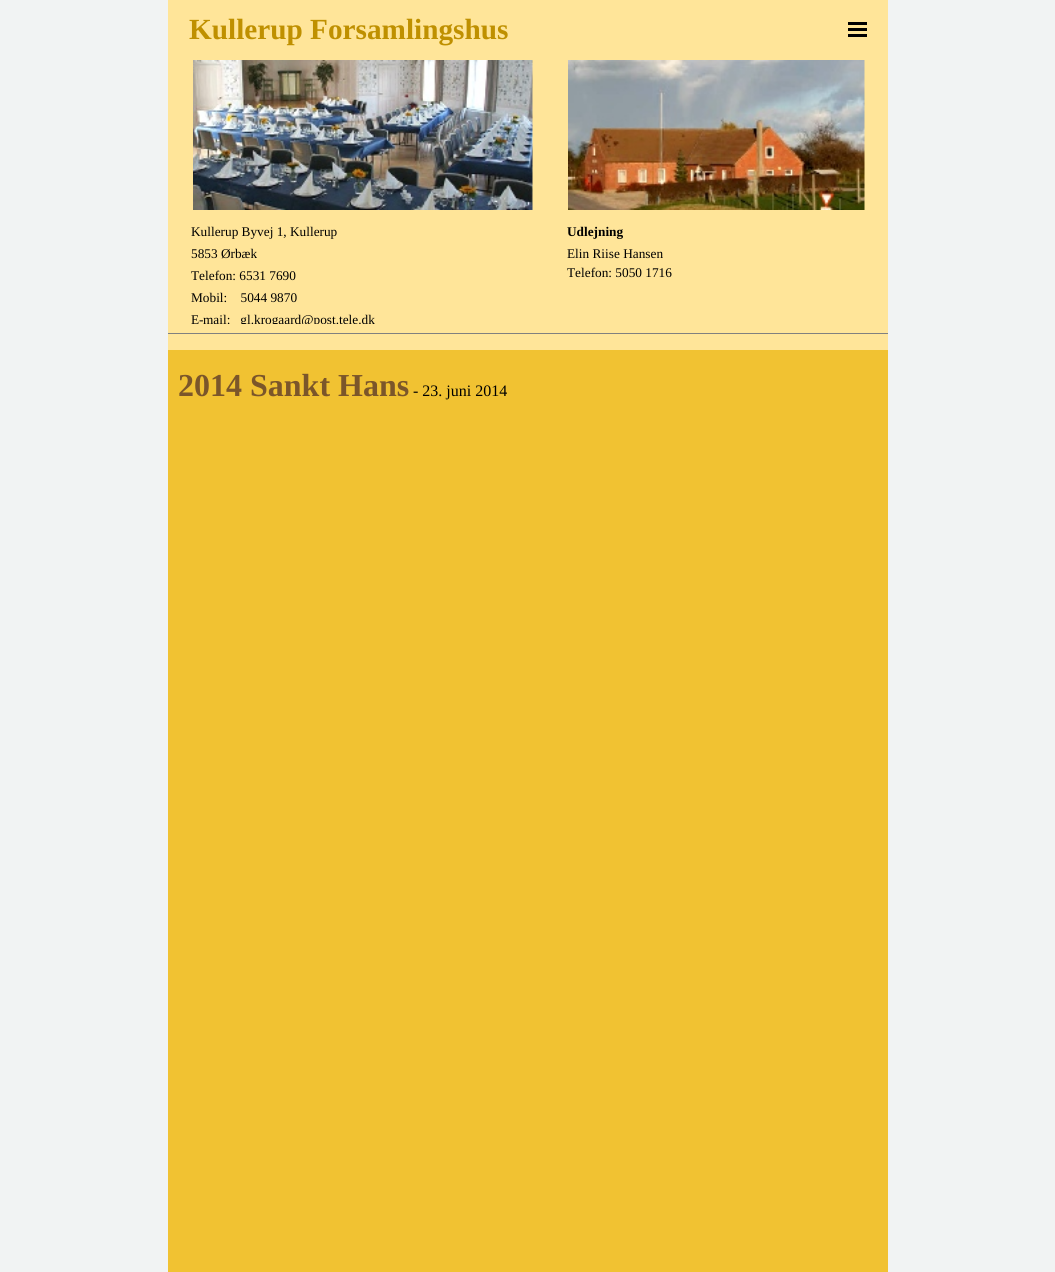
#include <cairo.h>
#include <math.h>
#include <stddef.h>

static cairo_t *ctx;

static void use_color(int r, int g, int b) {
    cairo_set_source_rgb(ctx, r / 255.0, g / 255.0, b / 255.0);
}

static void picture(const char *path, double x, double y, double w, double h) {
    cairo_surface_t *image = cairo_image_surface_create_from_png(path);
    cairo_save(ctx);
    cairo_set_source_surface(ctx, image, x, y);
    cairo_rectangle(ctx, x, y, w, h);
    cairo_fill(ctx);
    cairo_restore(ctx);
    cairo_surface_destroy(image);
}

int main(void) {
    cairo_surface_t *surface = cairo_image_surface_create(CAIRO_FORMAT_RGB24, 1055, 1272);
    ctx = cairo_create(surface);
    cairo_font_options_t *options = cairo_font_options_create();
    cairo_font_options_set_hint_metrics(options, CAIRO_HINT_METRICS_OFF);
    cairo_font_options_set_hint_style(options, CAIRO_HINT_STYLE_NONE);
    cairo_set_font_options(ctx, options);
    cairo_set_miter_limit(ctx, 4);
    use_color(241, 243, 243);
    cairo_paint(ctx);
    use_color(255, 229, 153);
    cairo_rectangle(ctx, 168, 0, 720, 350);
    cairo_fill(ctx);
    cairo_select_font_face(ctx, "Liberation Serif", CAIRO_FONT_SLANT_NORMAL, CAIRO_FONT_WEIGHT_BOLD);
    cairo_set_font_size(ctx, 29.25);
    use_color(191, 144, 0);
    cairo_move_to(ctx, 189, 39);
    cairo_show_text(ctx, "Kullerup Forsamlingshus");
    use_color(0, 0, 0);
    cairo_rectangle(ctx, 848, 22, 19, 3);
    cairo_fill(ctx);
    cairo_rectangle(ctx, 848, 28, 19, 3);
    cairo_fill(ctx);
    cairo_rectangle(ctx, 848, 34, 19, 3);
    cairo_fill(ctx);
    picture("img1.png", 193, 60, 340, 150);
    picture("img2.png", 568, 60, 297, 150);
    cairo_select_font_face(ctx, "Liberation Serif", CAIRO_FONT_SLANT_NORMAL, CAIRO_FONT_WEIGHT_NORMAL);
    cairo_set_font_size(ctx, 13.3);
    cairo_move_to(ctx, 191, 236);
    cairo_show_text(ctx, "Kullerup Byvej 1, Kullerup");
    cairo_move_to(ctx, 191, 258);
    cairo_show_text(ctx, "5853 Ørbæk");
    cairo_save(ctx);
    cairo_rectangle(ctx, 191, 220, 318, 104);
    cairo_clip(ctx);
    cairo_move_to(ctx, 191, 280);
    cairo_show_text(ctx, "Telefon: 6531 7690");
    cairo_restore(ctx);
    cairo_move_to(ctx, 191, 302);
    cairo_show_text(ctx, "Mobil:    5044 9870");
    cairo_move_to(ctx, 191, 324);
    cairo_show_text(ctx, "E-");
    cairo_save(ctx);
    cairo_rectangle(ctx, 191, 220, 318, 104);
    cairo_clip(ctx);
    cairo_move_to(ctx, 203, 324);
    cairo_show_text(ctx, "mail:   gl.krogaard@post.tele.dk");
    cairo_restore(ctx);
    cairo_select_font_face(ctx, "Liberation Serif", CAIRO_FONT_SLANT_NORMAL, CAIRO_FONT_WEIGHT_BOLD);
    cairo_move_to(ctx, 567, 236);
    cairo_show_text(ctx, "Udlejning");
    cairo_select_font_face(ctx, "Liberation Serif", CAIRO_FONT_SLANT_NORMAL, CAIRO_FONT_WEIGHT_NORMAL);
    cairo_move_to(ctx, 567, 258);
    cairo_show_text(ctx, "Elin Riise Hansen");
    cairo_save(ctx);
    cairo_rectangle(ctx, 567, 220, 271, 60);
    cairo_clip(ctx);
    cairo_move_to(ctx, 567, 277);
    cairo_show_text(ctx, "Telefon: 5050 1716");
    cairo_restore(ctx);
    use_color(128, 128, 128);
    cairo_rectangle(ctx, 168, 333, 720, 1);
    cairo_fill(ctx);
    use_color(241, 194, 50);
    cairo_rectangle(ctx, 168, 350, 720, 922);
    cairo_fill(ctx);
    cairo_select_font_face(ctx, "Liberation Serif", CAIRO_FONT_SLANT_NORMAL, CAIRO_FONT_WEIGHT_BOLD);
    cairo_set_font_size(ctx, 32);
    use_color(123, 86, 42);
    cairo_move_to(ctx, 178, 396);
    cairo_show_text(ctx, "2014 Sankt Hans");
    cairo_select_font_face(ctx, "Liberation Serif", CAIRO_FONT_SLANT_NORMAL, CAIRO_FONT_WEIGHT_NORMAL);
    cairo_set_font_size(ctx, 16);
    use_color(0, 0, 0);
    cairo_move_to(ctx, 413, 396);
    cairo_show_text(ctx, "- 23. juni 2014");
    cairo_surface_write_to_png(surface, "result.png");
    cairo_font_options_destroy(options);
    cairo_destroy(ctx);
    cairo_surface_destroy(surface);
    return 0;
}
